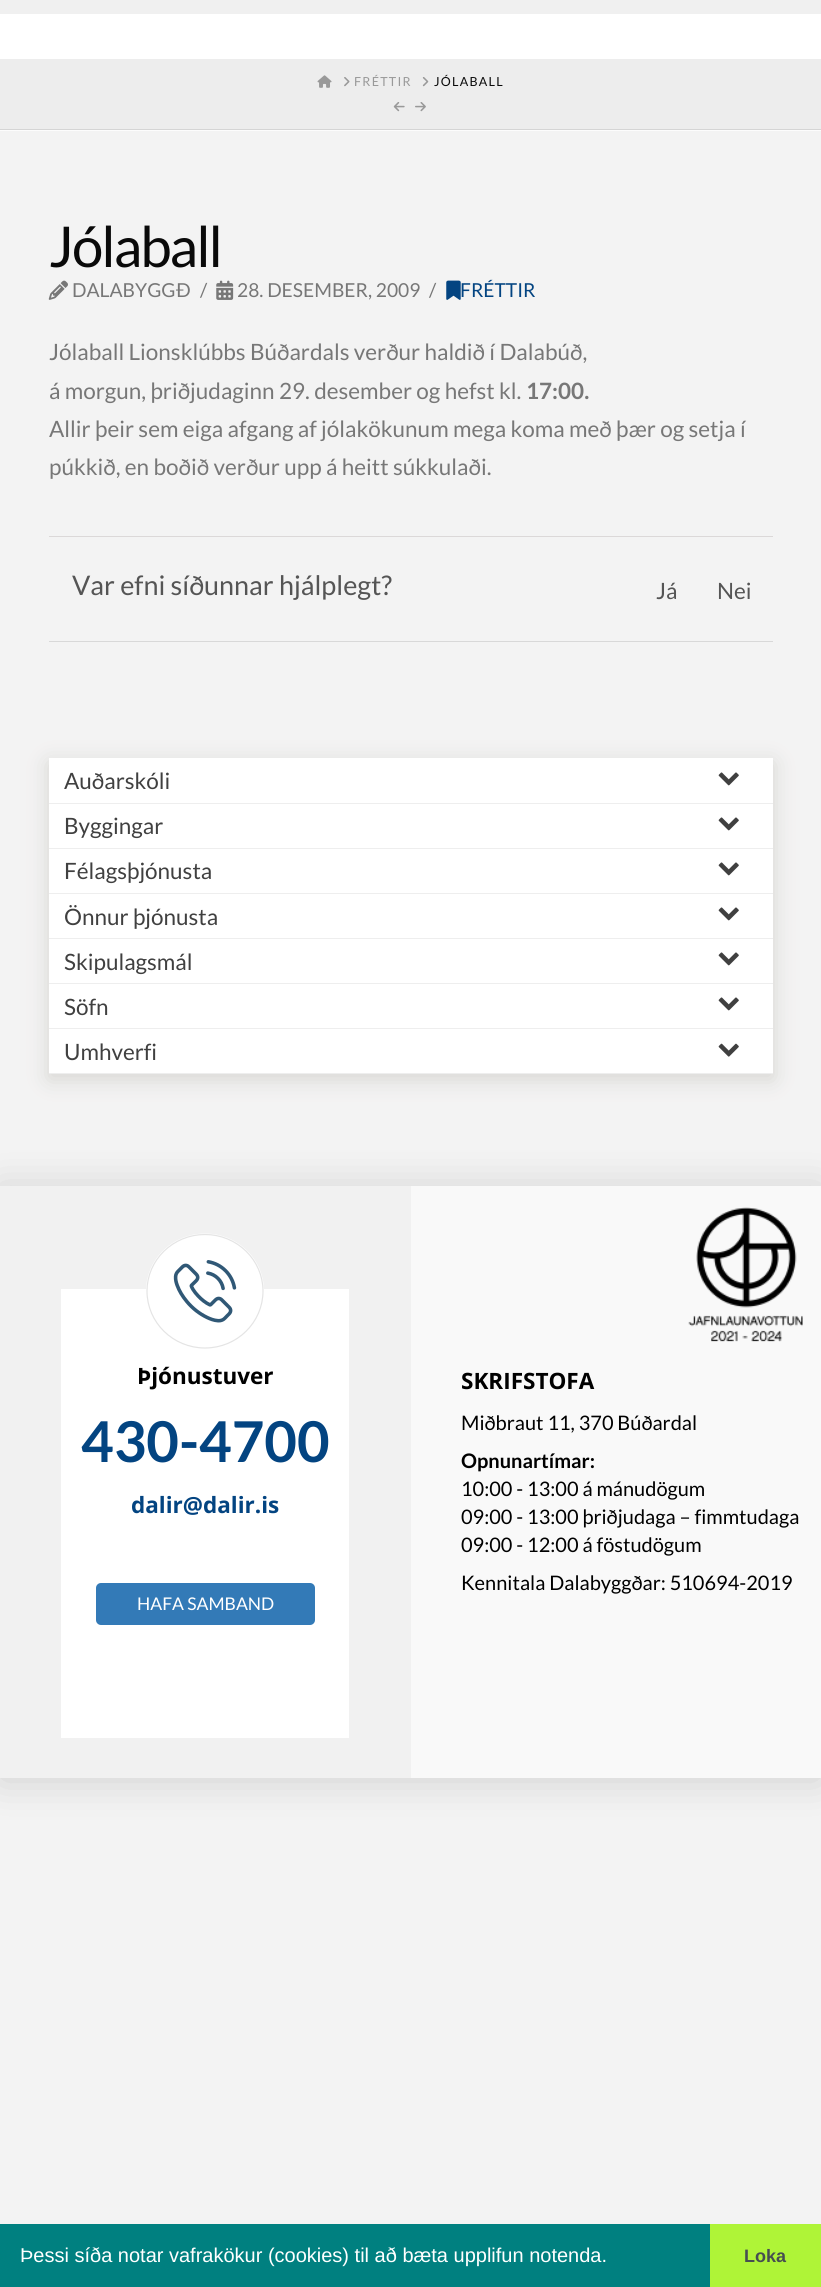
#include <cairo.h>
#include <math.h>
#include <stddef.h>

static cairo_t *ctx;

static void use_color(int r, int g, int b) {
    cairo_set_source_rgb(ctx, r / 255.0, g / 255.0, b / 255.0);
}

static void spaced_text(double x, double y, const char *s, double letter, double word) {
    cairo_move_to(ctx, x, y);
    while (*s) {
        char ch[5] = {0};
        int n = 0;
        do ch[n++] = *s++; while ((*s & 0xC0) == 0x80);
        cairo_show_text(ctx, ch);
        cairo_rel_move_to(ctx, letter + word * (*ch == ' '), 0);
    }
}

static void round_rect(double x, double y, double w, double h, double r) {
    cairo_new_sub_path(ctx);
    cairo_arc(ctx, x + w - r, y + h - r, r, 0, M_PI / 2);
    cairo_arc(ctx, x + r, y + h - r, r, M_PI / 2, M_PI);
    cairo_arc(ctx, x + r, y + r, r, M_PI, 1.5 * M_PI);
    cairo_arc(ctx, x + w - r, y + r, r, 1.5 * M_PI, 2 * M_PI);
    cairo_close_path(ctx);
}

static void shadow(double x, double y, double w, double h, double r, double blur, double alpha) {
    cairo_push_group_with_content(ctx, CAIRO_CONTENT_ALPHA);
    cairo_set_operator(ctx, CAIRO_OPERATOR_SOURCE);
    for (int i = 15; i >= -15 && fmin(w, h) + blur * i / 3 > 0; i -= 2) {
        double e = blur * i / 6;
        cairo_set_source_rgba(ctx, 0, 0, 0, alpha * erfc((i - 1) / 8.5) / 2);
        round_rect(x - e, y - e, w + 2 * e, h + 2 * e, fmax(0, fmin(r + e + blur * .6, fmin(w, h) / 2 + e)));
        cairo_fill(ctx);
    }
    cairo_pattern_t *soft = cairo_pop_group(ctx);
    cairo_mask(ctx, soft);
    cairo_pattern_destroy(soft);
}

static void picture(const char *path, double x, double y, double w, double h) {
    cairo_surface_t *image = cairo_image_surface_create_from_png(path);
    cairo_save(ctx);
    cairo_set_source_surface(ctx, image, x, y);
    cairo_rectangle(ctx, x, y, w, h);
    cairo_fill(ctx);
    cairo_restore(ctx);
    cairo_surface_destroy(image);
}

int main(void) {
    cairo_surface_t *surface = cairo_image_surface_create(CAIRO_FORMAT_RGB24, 821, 2287);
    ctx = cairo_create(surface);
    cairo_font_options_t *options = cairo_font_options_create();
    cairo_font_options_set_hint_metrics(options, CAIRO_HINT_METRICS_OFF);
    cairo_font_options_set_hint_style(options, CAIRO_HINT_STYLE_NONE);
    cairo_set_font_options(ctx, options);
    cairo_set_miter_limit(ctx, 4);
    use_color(243, 243, 243);
    cairo_paint(ctx);
    use_color(255, 255, 255);
    cairo_rectangle(ctx, 0, 14, 821, 45);
    cairo_fill(ctx);
    use_color(240, 240, 240);
    cairo_rectangle(ctx, 0, 0, 821, 14);
    cairo_fill(ctx);
    use_color(252, 252, 252);
    cairo_rectangle(ctx, 0, 130, 821, 1);
    cairo_fill(ctx);
    use_color(237, 237, 237);
    cairo_rectangle(ctx, 0, 59, 821, 70);
    cairo_fill(ctx);
    use_color(213, 213, 213);
    cairo_rectangle(ctx, 0, 129, 821, 1);
    cairo_fill(ctx);
    picture("img1.png", 317, 75, 15, 13);
    picture("img2.png", 344, 77, 6, 10);
    cairo_select_font_face(ctx, "Lato", CAIRO_FONT_SLANT_NORMAL, CAIRO_FONT_WEIGHT_NORMAL);
    cairo_set_font_size(ctx, 12.5);
    use_color(153, 153, 153);
    spaced_text(354, 86, "FRÉTTIR", 1.25, 0);
    picture("img3.png", 422, 77, 7, 10);
    use_color(10, 10, 10);
    spaced_text(434, 86, "JÓLABALL", 1.25, 0);
    picture("img4.png", 393, 102, 12, 10);
    picture("img5.png", 415, 102, 11, 10);
    cairo_set_font_size(ctx, 56.25);
    spaced_text(49, 267, "Jólaball", -2, 0);
    picture("img6.png", 48, 280, 20, 20);
    cairo_set_font_size(ctx, 19.25);
    use_color(119, 119, 119);
    cairo_move_to(ctx, 72, 297);
    cairo_show_text(ctx, "DALABYGGÐ");
    cairo_move_to(ctx, 200, 297);
    cairo_show_text(ctx, "/");
    picture("img7.png", 216, 280, 18, 20);
    cairo_move_to(ctx, 237, 297);
    cairo_show_text(ctx, "28. DESEMBER, 2009");
    cairo_move_to(ctx, 429, 297);
    cairo_show_text(ctx, "/");
    picture("img8.png", 446, 280, 15, 20);
    use_color(3, 68, 129);
    cairo_move_to(ctx, 460, 297);
    cairo_show_text(ctx, "FRÉTTIR");
    cairo_set_font_size(ctx, 22.5);
    use_color(119, 119, 119);
    cairo_move_to(ctx, 49, 360);
    cairo_show_text(ctx, "Jólaball Lionsklúbbs Búðardals verður haldið í Dalabúð,");
    cairo_move_to(ctx, 49, 399);
    cairo_show_text(ctx, "á morgun, þriðjudaginn 29. desember og hefst kl.");
    cairo_select_font_face(ctx, "Lato", CAIRO_FONT_SLANT_NORMAL, CAIRO_FONT_WEIGHT_BOLD);
    cairo_move_to(ctx, 526, 399);
    cairo_show_text(ctx, "17:00.");
    cairo_select_font_face(ctx, "Lato", CAIRO_FONT_SLANT_NORMAL, CAIRO_FONT_WEIGHT_NORMAL);
    cairo_move_to(ctx, 49, 437);
    cairo_show_text(ctx, "Allir þeir sem eiga afgang af jólakökunum mega koma með þær og setja í");
    cairo_move_to(ctx, 49, 475);
    cairo_show_text(ctx, "púkkið, en boðið verður upp á heitt súkkulaði.");
    use_color(219, 216, 216);
    cairo_rectangle(ctx, 49, 536, 724, 1);
    cairo_fill(ctx);
    use_color(216, 216, 216);
    cairo_rectangle(ctx, 49, 641, 724, 1);
    cairo_fill(ctx);
    cairo_set_font_size(ctx, 27);
    use_color(85, 85, 85);
    cairo_move_to(ctx, 72, 595);
    cairo_show_text(ctx, "Var efni síðunnar hjálplegt?");
    cairo_set_font_size(ctx, 22.5);
    cairo_move_to(ctx, 656, 599);
    cairo_show_text(ctx, "Já");
    cairo_move_to(ctx, 717, 599);
    cairo_show_text(ctx, "Nei");
    use_color(131, 125, 111);
    shadow(49, 763, 724, 316, 0, 10.5, 0.26);
    use_color(255, 255, 255);
    cairo_rectangle(ctx, 49, 758, 724, 315);
    cairo_fill(ctx);
    use_color(238, 238, 238);
    cairo_rectangle(ctx, 49, 803, 724, 1);
    cairo_fill(ctx);
    use_color(64, 64, 64);
    cairo_move_to(ctx, 64, 789);
    cairo_show_text(ctx, "Auðarskóli");
    picture("img9.png", 718, 772, 21, 14);
    use_color(238, 238, 238);
    cairo_rectangle(ctx, 49, 848, 724, 1);
    cairo_fill(ctx);
    use_color(64, 64, 64);
    cairo_move_to(ctx, 64, 834);
    cairo_show_text(ctx, "Byggingar");
    picture("img9.png", 718, 817, 21, 14);
    use_color(238, 238, 238);
    cairo_rectangle(ctx, 49, 893, 724, 1);
    cairo_fill(ctx);
    use_color(64, 64, 64);
    cairo_move_to(ctx, 64, 879);
    cairo_show_text(ctx, "Félagsþjónusta");
    picture("img9.png", 718, 862, 21, 14);
    use_color(238, 238, 238);
    cairo_rectangle(ctx, 49, 938, 724, 1);
    cairo_fill(ctx);
    use_color(64, 64, 64);
    cairo_move_to(ctx, 64, 925);
    cairo_show_text(ctx, "Önnur þjónusta");
    picture("img9.png", 718, 907, 21, 14);
    use_color(238, 238, 238);
    cairo_rectangle(ctx, 49, 983, 724, 1);
    cairo_fill(ctx);
    use_color(64, 64, 64);
    cairo_move_to(ctx, 64, 970);
    cairo_show_text(ctx, "Skipulagsmál");
    picture("img9.png", 718, 952, 21, 14);
    use_color(238, 238, 238);
    cairo_rectangle(ctx, 49, 1028, 724, 1);
    cairo_fill(ctx);
    use_color(64, 64, 64);
    cairo_move_to(ctx, 64, 1015);
    cairo_show_text(ctx, "Söfn");
    picture("img9.png", 718, 997, 21, 14);
    use_color(238, 238, 238);
    cairo_rectangle(ctx, 49, 1073, 724, 1);
    cairo_fill(ctx);
    use_color(64, 64, 64);
    cairo_move_to(ctx, 64, 1060);
    cairo_show_text(ctx, "Umhverfi");
    picture("img10.png", 718, 1043, 21, 14);
    use_color(0, 0, 0);
    shadow(0, 1189, 821, 591, 0, 20, 0.15);
    use_color(241, 241, 241);
    cairo_rectangle(ctx, 0, 1186, 411, 592);
    cairo_fill(ctx);
    use_color(255, 255, 255);
    cairo_rectangle(ctx, 61, 1289, 288, 449);
    cairo_fill(ctx);
    cairo_new_path(ctx);
    cairo_move_to(ctx, 205, 1233.5);
    cairo_curve_to(ctx, 237.5, 1233.5, 264, 1259, 264, 1291);
    cairo_curve_to(ctx, 264, 1323, 237.5, 1348.5, 205, 1348.5);
    cairo_curve_to(ctx, 172.5, 1348.5, 146, 1323, 146, 1291);
    cairo_curve_to(ctx, 146, 1259, 172.5, 1233.5, 205, 1233.5);
    cairo_close_path(ctx);
    cairo_fill(ctx);
    picture("img11.png", 173, 1260, 64, 63);
    cairo_new_path(ctx);
    cairo_move_to(ctx, 205, 1234.5);
    cairo_curve_to(ctx, 237, 1234.5, 263, 1260, 263, 1291);
    cairo_curve_to(ctx, 263, 1322.5, 237, 1348, 205, 1348);
    cairo_curve_to(ctx, 173, 1348, 147, 1322.5, 147, 1291);
    cairo_curve_to(ctx, 147, 1260, 173, 1234.5, 205, 1234.5);
    cairo_close_path(ctx);
    use_color(228, 228, 228);
    cairo_set_line_width(ctx, 1.2);
    cairo_stroke(ctx);
    cairo_select_font_face(ctx, "Open Sans", CAIRO_FONT_SLANT_NORMAL, CAIRO_FONT_WEIGHT_BOLD);
    use_color(0, 0, 0);
    cairo_move_to(ctx, 137, 1384);
    cairo_show_text(ctx, "Þjónustuver");
    cairo_select_font_face(ctx, "Lato", CAIRO_FONT_SLANT_NORMAL, CAIRO_FONT_WEIGHT_BOLD);
    cairo_set_font_size(ctx, 56.25);
    use_color(3, 68, 129);
    cairo_move_to(ctx, 81, 1462);
    cairo_show_text(ctx, "430-4700");
    cairo_select_font_face(ctx, "Open Sans", CAIRO_FONT_SLANT_NORMAL, CAIRO_FONT_WEIGHT_BOLD);
    cairo_set_font_size(ctx, 22.5);
    cairo_move_to(ctx, 131, 1513);
    cairo_show_text(ctx, "dalir@dalir.is");
    use_color(51, 122, 183);
    round_rect(96, 1583, 219, 42, 5);
    cairo_fill(ctx);
    cairo_select_font_face(ctx, "Lato", CAIRO_FONT_SLANT_NORMAL, CAIRO_FONT_WEIGHT_NORMAL);
    cairo_set_font_size(ctx, 17.5);
    use_color(255, 255, 255);
    cairo_move_to(ctx, 137, 1610);
    cairo_show_text(ctx, "HAFA SAMBAND");
    use_color(249, 249, 249);
    cairo_rectangle(ctx, 411, 1186, 410, 592);
    cairo_fill(ctx);
    picture("img12.png", 688, 1207, 115, 135);
    cairo_select_font_face(ctx, "Open Sans", CAIRO_FONT_SLANT_NORMAL, CAIRO_FONT_WEIGHT_BOLD);
    cairo_set_font_size(ctx, 22.5);
    use_color(0, 0, 0);
    cairo_move_to(ctx, 461, 1389);
    cairo_show_text(ctx, "SKRIFSTOFA");
    cairo_select_font_face(ctx, "Lato", CAIRO_FONT_SLANT_NORMAL, CAIRO_FONT_WEIGHT_NORMAL);
    cairo_set_font_size(ctx, 20);
    cairo_move_to(ctx, 461, 1430);
    cairo_show_text(ctx, "Miðbraut 11, 370 Búðardal");
    cairo_select_font_face(ctx, "Lato", CAIRO_FONT_SLANT_NORMAL, CAIRO_FONT_WEIGHT_BOLD);
    cairo_move_to(ctx, 461, 1468);
    cairo_show_text(ctx, "Opnunartímar:");
    cairo_select_font_face(ctx, "Lato", CAIRO_FONT_SLANT_NORMAL, CAIRO_FONT_WEIGHT_NORMAL);
    cairo_move_to(ctx, 461, 1496);
    cairo_show_text(ctx, "10:00 - 13:00 á mánudögum");
    cairo_move_to(ctx, 461, 1524);
    cairo_show_text(ctx, "09:00 - 13:00 þriðjudaga – fimmtudaga");
    cairo_move_to(ctx, 461, 1552);
    cairo_show_text(ctx, "09:00 - 12:00 á föstudögum");
    cairo_move_to(ctx, 461, 1590);
    cairo_show_text(ctx, "Kennitala Dalabyggðar: 510694-2019");
    use_color(0, 128, 128);
    cairo_rectangle(ctx, 0, 2224, 710, 63);
    cairo_fill(ctx);
    cairo_select_font_face(ctx, "Liberation Sans", CAIRO_FONT_SLANT_NORMAL, CAIRO_FONT_WEIGHT_NORMAL);
    use_color(255, 255, 255);
    cairo_move_to(ctx, 20, 2262);
    cairo_show_text(ctx, "Þessi síða notar vafrakökur (cookies) til að bæta upplifun notenda.");
    use_color(175, 244, 55);
    cairo_rectangle(ctx, 710, 2224, 111, 63);
    cairo_fill(ctx);
    cairo_select_font_face(ctx, "Liberation Sans", CAIRO_FONT_SLANT_NORMAL, CAIRO_FONT_WEIGHT_BOLD);
    cairo_set_font_size(ctx, 18);
    use_color(70, 78, 81);
    cairo_move_to(ctx, 744, 2262);
    cairo_show_text(ctx, "Loka");
    cairo_surface_write_to_png(surface, "result.png");
    cairo_font_options_destroy(options);
    cairo_destroy(ctx);
    cairo_surface_destroy(surface);
    return 0;
}
